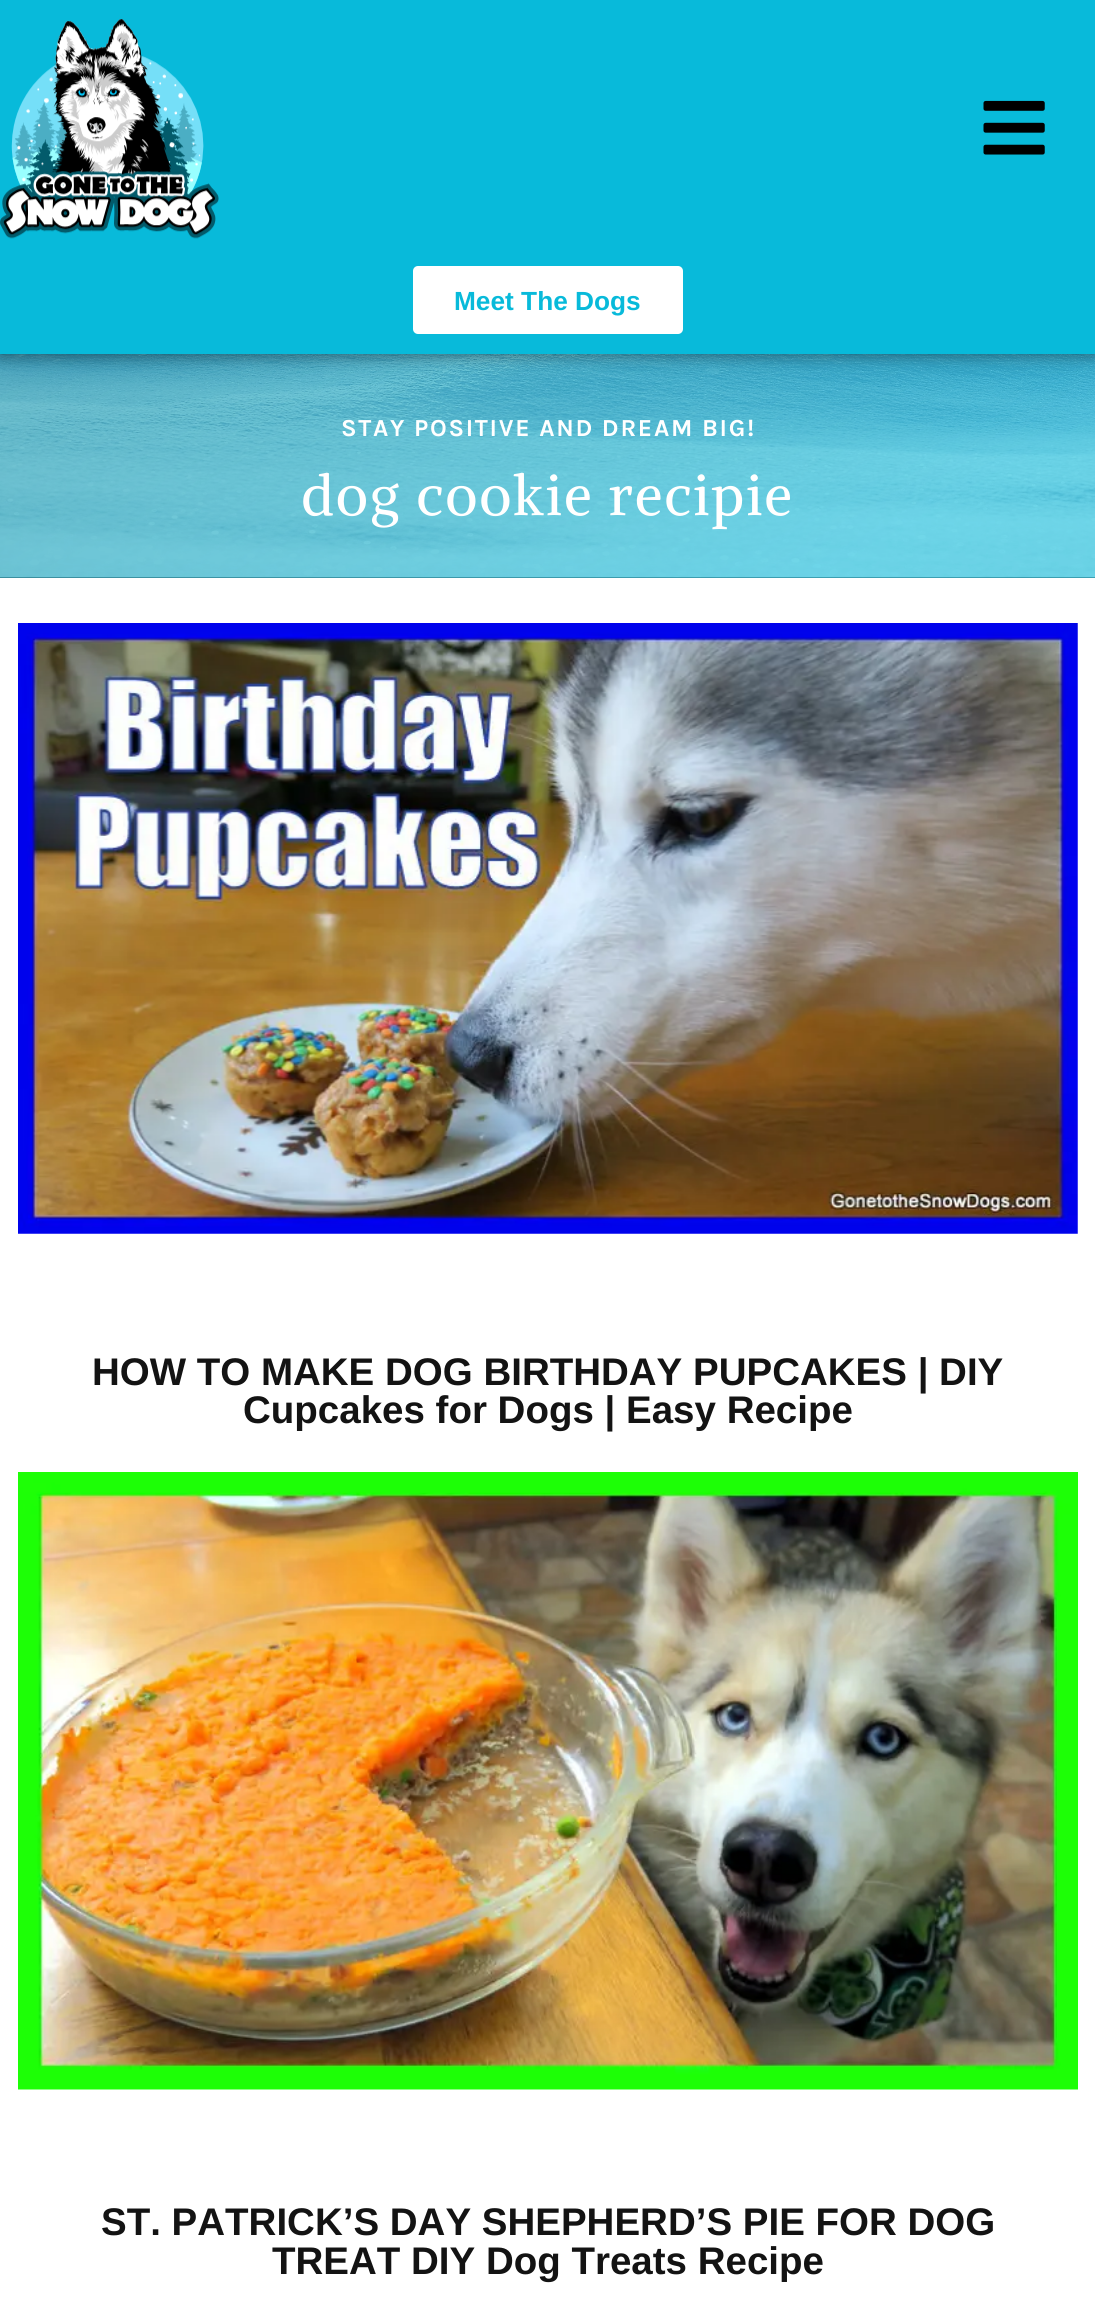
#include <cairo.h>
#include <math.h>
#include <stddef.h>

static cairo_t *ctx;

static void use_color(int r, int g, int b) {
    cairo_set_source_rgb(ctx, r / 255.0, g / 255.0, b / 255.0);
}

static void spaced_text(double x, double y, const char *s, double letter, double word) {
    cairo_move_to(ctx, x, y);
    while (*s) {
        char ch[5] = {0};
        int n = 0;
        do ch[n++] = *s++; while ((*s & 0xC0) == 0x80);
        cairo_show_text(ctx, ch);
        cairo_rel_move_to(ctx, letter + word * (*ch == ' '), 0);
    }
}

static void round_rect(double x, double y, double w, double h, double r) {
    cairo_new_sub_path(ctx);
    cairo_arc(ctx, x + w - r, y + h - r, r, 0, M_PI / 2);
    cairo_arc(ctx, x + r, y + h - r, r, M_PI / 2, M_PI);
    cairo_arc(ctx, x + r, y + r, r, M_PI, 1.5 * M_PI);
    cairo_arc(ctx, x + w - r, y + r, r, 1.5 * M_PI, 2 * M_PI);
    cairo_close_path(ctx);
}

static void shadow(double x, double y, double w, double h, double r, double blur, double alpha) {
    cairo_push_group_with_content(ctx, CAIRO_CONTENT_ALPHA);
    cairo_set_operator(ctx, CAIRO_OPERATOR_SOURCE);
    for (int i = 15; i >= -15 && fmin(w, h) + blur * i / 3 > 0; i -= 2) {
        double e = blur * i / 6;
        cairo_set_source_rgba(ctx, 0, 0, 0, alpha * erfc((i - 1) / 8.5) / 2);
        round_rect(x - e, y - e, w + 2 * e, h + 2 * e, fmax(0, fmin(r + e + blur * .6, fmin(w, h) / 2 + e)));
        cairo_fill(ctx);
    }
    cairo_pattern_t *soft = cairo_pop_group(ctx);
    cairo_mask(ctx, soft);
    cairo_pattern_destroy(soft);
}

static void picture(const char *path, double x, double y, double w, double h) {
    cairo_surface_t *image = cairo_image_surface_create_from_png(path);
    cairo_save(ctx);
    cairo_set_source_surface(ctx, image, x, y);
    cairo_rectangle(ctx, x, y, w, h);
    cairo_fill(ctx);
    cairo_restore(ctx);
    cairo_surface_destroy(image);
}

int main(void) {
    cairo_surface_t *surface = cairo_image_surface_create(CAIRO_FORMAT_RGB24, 1095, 2320);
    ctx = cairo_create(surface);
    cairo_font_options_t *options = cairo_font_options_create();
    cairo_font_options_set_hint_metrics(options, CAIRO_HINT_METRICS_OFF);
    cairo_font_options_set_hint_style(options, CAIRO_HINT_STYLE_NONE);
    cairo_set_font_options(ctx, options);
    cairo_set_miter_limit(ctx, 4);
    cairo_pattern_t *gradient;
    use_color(255, 255, 255);
    cairo_paint(ctx);
    use_color(21, 1, 1);
    cairo_rectangle(ctx, 0, 577, 1095, 1);
    cairo_fill(ctx);
    picture("img3.png", 0, 354, 1095, 224);
    gradient = cairo_pattern_create_linear(362, 144, 733, 787);
    cairo_pattern_add_color_stop_rgba(gradient, 0.04, 0.024, 0.569, 0.667, 0.58);
    cairo_pattern_add_color_stop_rgba(gradient, 0.82, 0.031, 0.729, 0.855, 0.58);
    cairo_set_source(ctx, gradient);
    cairo_pattern_destroy(gradient);
    cairo_rectangle(ctx, 0, 354, 1095, 224);
    cairo_fill(ctx);
    use_color(0, 0, 0);
    shadow(0, 0, 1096, 354, 0, 9, 0.5);
    use_color(8, 186, 218);
    cairo_rectangle(ctx, 0, 0, 1095, 354);
    cairo_fill(ctx);
    picture("img1.png", 0, 19, 219, 220);
    picture("img2.png", 983, 100, 62, 55);
    use_color(255, 255, 255);
    round_rect(413, 266, 270, 68, 5);
    cairo_fill(ctx);
    cairo_select_font_face(ctx, "Liberation Sans", CAIRO_FONT_SLANT_NORMAL, CAIRO_FONT_WEIGHT_BOLD);
    cairo_set_font_size(ctx, 26.25);
    use_color(8, 186, 218);
    cairo_move_to(ctx, 454, 310);
    cairo_show_text(ctx, "Meet The Dogs");
    cairo_select_font_face(ctx, "Karla", CAIRO_FONT_SLANT_NORMAL, CAIRO_FONT_WEIGHT_BOLD);
    cairo_set_font_size(ctx, 24.5);
    use_color(255, 255, 255);
    spaced_text(341, 436, "STAY POSITIVE AND DREAM BIG!", 1.7, 0);
    cairo_select_font_face(ctx, "Alike", CAIRO_FONT_SLANT_NORMAL, CAIRO_FONT_WEIGHT_NORMAL);
    cairo_set_font_size(ctx, 56);
    spaced_text(301, 515, "dog cookie recipie", 1.9, 0);
    picture("img4.png", 18, 623, 1060, 611);
    cairo_select_font_face(ctx, "Liberation Sans", CAIRO_FONT_SLANT_NORMAL, CAIRO_FONT_WEIGHT_BOLD);
    cairo_set_font_size(ctx, 38.5);
    use_color(19, 19, 19);
    cairo_move_to(ctx, 92, 1385);
    cairo_show_text(ctx, "HOW TO MAKE DOG BIRTHDAY PUPCAKES | DIY");
    cairo_move_to(ctx, 243, 1423);
    cairo_show_text(ctx, "Cupcakes for Dogs | Easy Recipe");
    picture("img5.png", 18, 1472, 1060, 618);
    cairo_move_to(ctx, 101, 2235);
    cairo_show_text(ctx, "ST. PATRICK’S DAY SHEPHERD’S PIE FOR DOG");
    cairo_move_to(ctx, 272, 2274);
    cairo_show_text(ctx, "TREAT DIY Dog Treats Recipe");
    cairo_surface_write_to_png(surface, "result.png");
    cairo_font_options_destroy(options);
    cairo_destroy(ctx);
    cairo_surface_destroy(surface);
    return 0;
}
